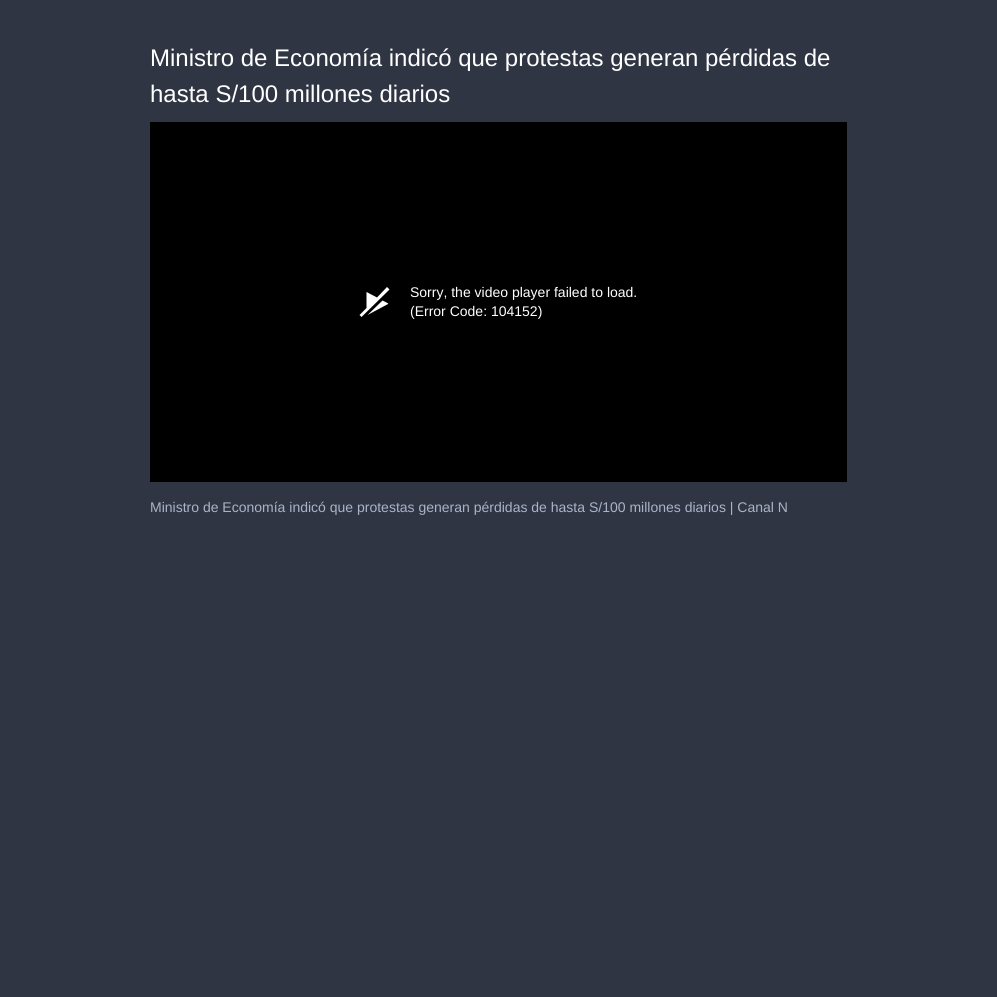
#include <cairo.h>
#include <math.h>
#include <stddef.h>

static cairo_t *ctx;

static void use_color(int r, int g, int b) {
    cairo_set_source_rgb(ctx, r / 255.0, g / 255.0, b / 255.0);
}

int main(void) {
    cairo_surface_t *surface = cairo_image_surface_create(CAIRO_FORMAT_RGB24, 997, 997);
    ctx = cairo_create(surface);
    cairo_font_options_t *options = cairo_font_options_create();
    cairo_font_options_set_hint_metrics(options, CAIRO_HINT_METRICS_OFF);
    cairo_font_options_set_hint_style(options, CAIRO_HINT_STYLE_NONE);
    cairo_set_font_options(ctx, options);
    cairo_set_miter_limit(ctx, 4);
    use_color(47, 53, 66);
    cairo_paint(ctx);
    cairo_select_font_face(ctx, "Liberation Sans", CAIRO_FONT_SLANT_NORMAL, CAIRO_FONT_WEIGHT_NORMAL);
    cairo_set_font_size(ctx, 24);
    use_color(255, 255, 255);
    cairo_move_to(ctx, 150, 66);
    cairo_show_text(ctx, "Ministro de Economía indicó que protestas generan pérdidas de");
    cairo_move_to(ctx, 150, 102);
    cairo_show_text(ctx, "hasta S/100 millones diarios");
    use_color(0, 0, 0);
    cairo_rectangle(ctx, 150, 122, 697, 360);
    cairo_fill(ctx);
    use_color(255, 255, 255);
    cairo_new_path(ctx);
    cairo_move_to(ctx, 388, 304);
    cairo_line_to(ctx, 367.5, 315);
    cairo_line_to(ctx, 382.5, 300.5);
    cairo_curve_to(ctx, 388, 303.5, 389, 303.5, 388, 304);
    cairo_close_path(ctx);
    cairo_move_to(ctx, 387, 287);
    cairo_line_to(ctx, 377, 297.5);
    cairo_line_to(ctx, 366.5, 292);
    cairo_line_to(ctx, 366.5, 308);
    cairo_line_to(ctx, 359.5, 315);
    cairo_line_to(ctx, 361.5, 317);
    cairo_line_to(ctx, 389.5, 289.5);
    cairo_close_path(ctx);
    cairo_fill(ctx);
    cairo_set_font_size(ctx, 14);
    cairo_move_to(ctx, 410, 297);
    cairo_show_text(ctx, "Sorry, the video player failed to load.");
    cairo_move_to(ctx, 410, 316);
    cairo_show_text(ctx, "(Error Code: 104152)");
    use_color(170, 180, 200);
    cairo_move_to(ctx, 150, 512);
    cairo_show_text(ctx, "Ministro de Economía indicó que protestas generan pérdidas de hasta S/100 millones diarios | Canal N");
    cairo_surface_write_to_png(surface, "result.png");
    cairo_font_options_destroy(options);
    cairo_destroy(ctx);
    cairo_surface_destroy(surface);
    return 0;
}
